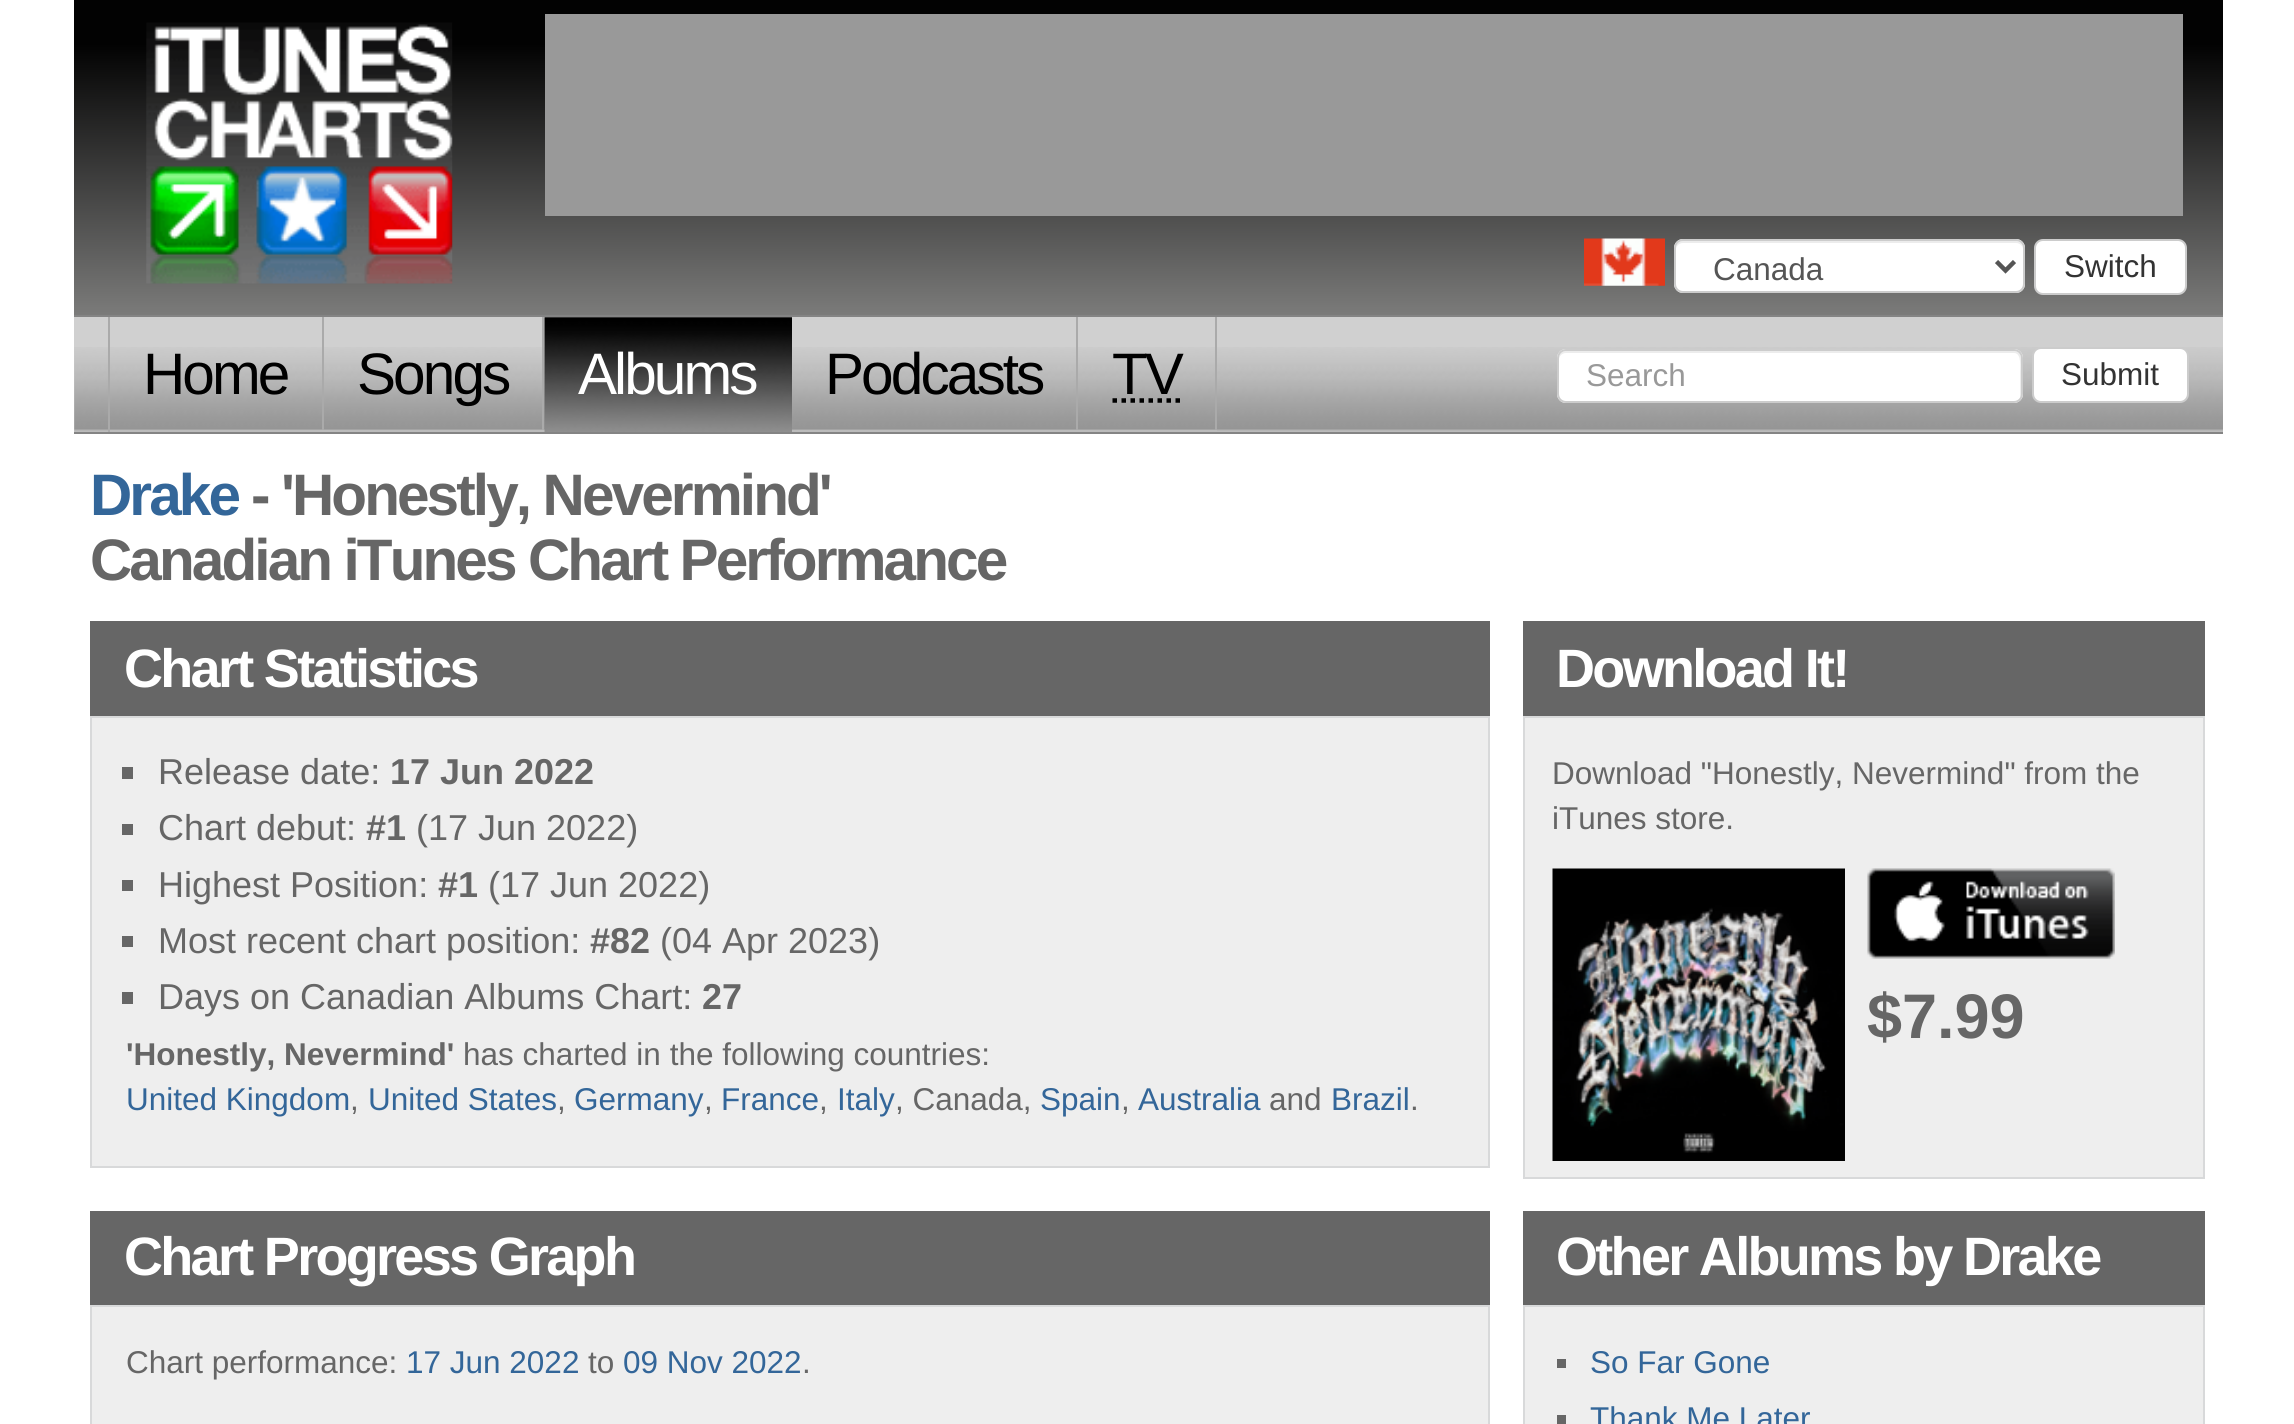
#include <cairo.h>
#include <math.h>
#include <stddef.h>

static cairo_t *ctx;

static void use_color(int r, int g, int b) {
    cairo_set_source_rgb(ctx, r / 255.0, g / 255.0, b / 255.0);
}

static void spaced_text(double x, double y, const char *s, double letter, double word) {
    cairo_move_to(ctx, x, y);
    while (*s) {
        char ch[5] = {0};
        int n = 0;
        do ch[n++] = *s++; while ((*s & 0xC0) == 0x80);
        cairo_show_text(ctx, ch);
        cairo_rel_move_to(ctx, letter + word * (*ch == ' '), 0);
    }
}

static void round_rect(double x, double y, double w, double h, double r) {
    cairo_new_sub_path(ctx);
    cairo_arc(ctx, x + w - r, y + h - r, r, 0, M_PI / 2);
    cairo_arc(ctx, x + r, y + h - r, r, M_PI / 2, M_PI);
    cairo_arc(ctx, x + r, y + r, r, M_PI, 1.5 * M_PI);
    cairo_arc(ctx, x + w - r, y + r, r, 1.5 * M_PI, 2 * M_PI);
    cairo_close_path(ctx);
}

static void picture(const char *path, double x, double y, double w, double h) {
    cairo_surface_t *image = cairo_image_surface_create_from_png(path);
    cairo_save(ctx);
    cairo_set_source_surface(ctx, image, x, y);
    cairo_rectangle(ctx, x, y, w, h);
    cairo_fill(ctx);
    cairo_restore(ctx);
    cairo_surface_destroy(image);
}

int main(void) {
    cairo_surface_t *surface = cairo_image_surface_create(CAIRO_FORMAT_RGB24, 2294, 1424);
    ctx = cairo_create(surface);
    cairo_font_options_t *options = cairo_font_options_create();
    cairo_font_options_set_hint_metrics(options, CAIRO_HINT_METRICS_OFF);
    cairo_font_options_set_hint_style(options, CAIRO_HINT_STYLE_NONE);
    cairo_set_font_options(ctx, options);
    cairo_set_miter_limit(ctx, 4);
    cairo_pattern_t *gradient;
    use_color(255, 255, 255);
    cairo_paint(ctx);
    gradient = cairo_pattern_create_linear(1149, 315, 1149, 0);
    cairo_pattern_add_color_stop_rgba(gradient, 0, 0.482, 0.482, 0.478, 1);
    cairo_pattern_add_color_stop_rgba(gradient, 0.86, 0.008, 0.008, 0.008, 1);
    cairo_set_source(ctx, gradient);
    cairo_pattern_destroy(gradient);
    cairo_rectangle(ctx, 74, 0, 2149, 315);
    cairo_fill(ctx);
    use_color(153, 153, 153);
    cairo_rectangle(ctx, 545, 14, 1638, 202);
    cairo_fill(ctx);
    picture("img1.png", 146, 22, 307, 262);
    picture("img2.png", 1584, 238, 81, 48);
    use_color(255, 255, 255);
    round_rect(1674, 239, 351, 54, 9);
    cairo_fill(ctx);
    use_color(236, 236, 236);
    cairo_new_path(ctx);
    cairo_move_to(ctx, 1683, 243);
    cairo_line_to(ctx, 2016, 243);
    cairo_curve_to(ctx, 2020, 243, 2023, 246, 2023, 250);
    cairo_curve_to(ctx, 2023, 246, 2021, 241, 2016, 241);
    cairo_line_to(ctx, 1682, 241);
    cairo_curve_to(ctx, 1677, 242, 1676, 246, 1676, 250);
    cairo_curve_to(ctx, 1676, 246, 1679, 243, 1683, 243);
    cairo_close_path(ctx);
    cairo_fill(ctx);
    round_rect(1675, 240, 349, 52, 8);
    use_color(204, 204, 204);
    cairo_stroke(ctx);
    cairo_new_path(ctx);
    cairo_move_to(ctx, 1996.5, 261.5);
    cairo_line_to(ctx, 2005.5, 270.5);
    cairo_line_to(ctx, 2014.5, 261.5);
    use_color(85, 85, 85);
    cairo_set_line_width(ctx, 4.5);
    cairo_stroke(ctx);
    cairo_select_font_face(ctx, "Liberation Sans", CAIRO_FONT_SLANT_NORMAL, CAIRO_FONT_WEIGHT_NORMAL);
    cairo_set_font_size(ctx, 31.5);
    cairo_move_to(ctx, 1713, 280);
    cairo_show_text(ctx, "Canada");
    use_color(255, 255, 255);
    round_rect(2035, 240, 151, 54, 8);
    cairo_fill_preserve(ctx);
    use_color(204, 204, 204);
    cairo_set_line_width(ctx, 2);
    cairo_stroke(ctx);
    use_color(51, 51, 51);
    cairo_move_to(ctx, 2064, 277);
    cairo_show_text(ctx, "Switch");
    use_color(208, 208, 208);
    cairo_rectangle(ctx, 74, 317, 2149, 115);
    cairo_fill(ctx);
    picture("img3.png", 74, 347, 2149, 85);
    use_color(132, 132, 132);
    cairo_rectangle(ctx, 74, 315, 2149, 2);
    cairo_fill(ctx);
    cairo_rectangle(ctx, 74, 432, 2149, 2);
    cairo_fill(ctx);
    picture("img4.png", 110, 347, 1105, 83);
    use_color(170, 170, 170);
    cairo_rectangle(ctx, 108, 317, 2, 115);
    cairo_fill(ctx);
    cairo_rectangle(ctx, 322, 317, 2, 115);
    cairo_fill(ctx);
    use_color(187, 187, 187);
    cairo_rectangle(ctx, 110, 430, 214, 2);
    cairo_fill(ctx);
    cairo_set_font_size(ctx, 58.5);
    use_color(0, 0, 0);
    spaced_text(143, 394, "Home", -2.9, 0);
    use_color(170, 170, 170);
    cairo_rectangle(ctx, 542, 317, 2, 115);
    cairo_fill(ctx);
    use_color(187, 187, 187);
    cairo_rectangle(ctx, 324, 430, 221, 2);
    cairo_fill(ctx);
    use_color(0, 0, 0);
    spaced_text(357, 394, "Songs", -2.9, 0);
    picture("img5.png", 544, 317, 248, 115);
    use_color(255, 255, 255);
    spaced_text(578, 394, "Albums", -2.9, 0);
    use_color(170, 170, 170);
    cairo_rectangle(ctx, 1076, 317, 2, 115);
    cairo_fill(ctx);
    use_color(187, 187, 187);
    cairo_rectangle(ctx, 792, 430, 286, 2);
    cairo_fill(ctx);
    use_color(0, 0, 0);
    spaced_text(825, 394, "Podcasts", -2.9, 0);
    use_color(170, 170, 170);
    cairo_rectangle(ctx, 1215, 317, 2, 115);
    cairo_fill(ctx);
    use_color(187, 187, 187);
    cairo_rectangle(ctx, 1078, 430, 139, 2);
    cairo_fill(ctx);
    use_color(0, 0, 0);
    spaced_text(1112, 394, "TV", -2.9, 0);
    cairo_new_path(ctx);
    cairo_move_to(ctx, 1112.5, 400.5);
    cairo_line_to(ctx, 1181, 400.5);
    cairo_set_line_width(ctx, 4.5);
    cairo_set_dash(ctx, (double[]){4.5, 4.5}, 2, 0);
    cairo_stroke(ctx);
    use_color(255, 255, 255);
    round_rect(1557, 349, 466, 54, 9);
    cairo_fill(ctx);
    use_color(236, 236, 236);
    cairo_new_path(ctx);
    cairo_move_to(ctx, 1566, 353);
    cairo_line_to(ctx, 2014, 353);
    cairo_curve_to(ctx, 2022, 353, 2020, 368, 2020, 372);
    cairo_line_to(ctx, 2020, 398);
    cairo_curve_to(ctx, 2021, 397, 2021, 395, 2021, 394);
    cairo_line_to(ctx, 2021, 358);
    cairo_curve_to(ctx, 2021, 354, 2018, 351, 2014, 351);
    cairo_line_to(ctx, 1566, 351);
    cairo_curve_to(ctx, 1562, 351, 1559, 354, 1559, 358);
    cairo_line_to(ctx, 1559, 360);
    cairo_curve_to(ctx, 1559, 356, 1562, 353, 1566, 353);
    cairo_close_path(ctx);
    cairo_fill(ctx);
    round_rect(1558, 350, 464, 52, 8);
    use_color(204, 204, 204);
    cairo_set_line_width(ctx, 2);
    cairo_set_dash(ctx, NULL, 0, 0);
    cairo_stroke(ctx);
    cairo_set_font_size(ctx, 31.5);
    use_color(153, 153, 153);
    cairo_move_to(ctx, 1586, 386);
    cairo_show_text(ctx, "Search");
    use_color(255, 255, 255);
    round_rect(2033, 348, 155, 54, 8);
    cairo_fill_preserve(ctx);
    use_color(204, 204, 204);
    cairo_stroke(ctx);
    use_color(51, 51, 51);
    cairo_move_to(ctx, 2061, 385);
    cairo_show_text(ctx, "Submit");
    cairo_select_font_face(ctx, "Liberation Sans", CAIRO_FONT_SLANT_NORMAL, CAIRO_FONT_WEIGHT_BOLD);
    cairo_set_font_size(ctx, 58.5);
    use_color(51, 102, 153);
    spaced_text(90, 515, "Drake", -2.9, 0);
    use_color(102, 102, 102);
    spaced_text(251, 515, "- 'Honestly, Nevermind'", -2.9, 0);
    spaced_text(90, 580, "Canadian iTunes Chart Performance", -2.9, 0);
    cairo_rectangle(ctx, 90, 621, 1400, 95);
    cairo_fill(ctx);
    cairo_set_font_size(ctx, 54);
    use_color(255, 255, 255);
    spaced_text(124, 687, "Chart Statistics", -2.7, 0);
    use_color(238, 238, 238);
    cairo_rectangle(ctx, 91, 717, 1398, 450);
    cairo_fill_preserve(ctx);
    use_color(216, 217, 218);
    cairo_stroke(ctx);
    use_color(102, 102, 102);
    cairo_rectangle(ctx, 122, 767, 11, 12);
    cairo_fill(ctx);
    cairo_select_font_face(ctx, "Liberation Sans", CAIRO_FONT_SLANT_NORMAL, CAIRO_FONT_WEIGHT_NORMAL);
    cairo_set_font_size(ctx, 36);
    cairo_move_to(ctx, 158, 784);
    cairo_show_text(ctx, "Release date:");
    cairo_select_font_face(ctx, "Liberation Sans", CAIRO_FONT_SLANT_NORMAL, CAIRO_FONT_WEIGHT_BOLD);
    cairo_move_to(ctx, 390, 784);
    cairo_show_text(ctx, "17 Jun 2022");
    cairo_rectangle(ctx, 122, 824, 11, 11);
    cairo_fill(ctx);
    cairo_select_font_face(ctx, "Liberation Sans", CAIRO_FONT_SLANT_NORMAL, CAIRO_FONT_WEIGHT_NORMAL);
    cairo_move_to(ctx, 158, 840);
    cairo_show_text(ctx, "Chart debut:");
    cairo_select_font_face(ctx, "Liberation Sans", CAIRO_FONT_SLANT_NORMAL, CAIRO_FONT_WEIGHT_BOLD);
    cairo_move_to(ctx, 366, 840);
    cairo_show_text(ctx, "#1");
    cairo_select_font_face(ctx, "Liberation Sans", CAIRO_FONT_SLANT_NORMAL, CAIRO_FONT_WEIGHT_NORMAL);
    cairo_move_to(ctx, 416, 840);
    cairo_show_text(ctx, "(17 Jun 2022)");
    cairo_rectangle(ctx, 122, 880, 11, 11);
    cairo_fill(ctx);
    cairo_move_to(ctx, 158, 897);
    cairo_show_text(ctx, "Highest Position:");
    cairo_select_font_face(ctx, "Liberation Sans", CAIRO_FONT_SLANT_NORMAL, CAIRO_FONT_WEIGHT_BOLD);
    cairo_move_to(ctx, 438, 897);
    cairo_show_text(ctx, "#1");
    cairo_select_font_face(ctx, "Liberation Sans", CAIRO_FONT_SLANT_NORMAL, CAIRO_FONT_WEIGHT_NORMAL);
    cairo_move_to(ctx, 488, 897);
    cairo_show_text(ctx, "(17 Jun 2022)");
    cairo_rectangle(ctx, 122, 936, 11, 11);
    cairo_fill(ctx);
    cairo_move_to(ctx, 158, 953);
    cairo_show_text(ctx, "Most recent chart position:");
    cairo_select_font_face(ctx, "Liberation Sans", CAIRO_FONT_SLANT_NORMAL, CAIRO_FONT_WEIGHT_BOLD);
    cairo_move_to(ctx, 590, 953);
    cairo_show_text(ctx, "#82");
    cairo_select_font_face(ctx, "Liberation Sans", CAIRO_FONT_SLANT_NORMAL, CAIRO_FONT_WEIGHT_NORMAL);
    cairo_move_to(ctx, 660, 953);
    cairo_show_text(ctx, "(04 Apr 2023)");
    cairo_rectangle(ctx, 122, 992, 11, 12);
    cairo_fill(ctx);
    cairo_move_to(ctx, 158, 1009);
    cairo_show_text(ctx, "Days on Canadian Albums Chart:");
    cairo_select_font_face(ctx, "Liberation Sans", CAIRO_FONT_SLANT_NORMAL, CAIRO_FONT_WEIGHT_BOLD);
    cairo_move_to(ctx, 702, 1009);
    cairo_show_text(ctx, "27");
    cairo_set_font_size(ctx, 31.5);
    cairo_move_to(ctx, 126, 1065);
    cairo_show_text(ctx, "'Honestly, Nevermind'");
    cairo_select_font_face(ctx, "Liberation Sans", CAIRO_FONT_SLANT_NORMAL, CAIRO_FONT_WEIGHT_NORMAL);
    cairo_move_to(ctx, 463, 1065);
    cairo_show_text(ctx, "has charted in the following countries:");
    use_color(51, 102, 153);
    cairo_move_to(ctx, 126, 1110);
    cairo_show_text(ctx, "United Kingdom");
    use_color(102, 102, 102);
    cairo_move_to(ctx, 350, 1110);
    cairo_show_text(ctx, ",");
    use_color(51, 102, 153);
    cairo_move_to(ctx, 368, 1110);
    cairo_show_text(ctx, "United States");
    use_color(102, 102, 102);
    cairo_move_to(ctx, 557, 1110);
    cairo_show_text(ctx, ",");
    use_color(51, 102, 153);
    cairo_move_to(ctx, 574, 1110);
    cairo_show_text(ctx, "Germany");
    use_color(102, 102, 102);
    cairo_move_to(ctx, 704, 1110);
    cairo_show_text(ctx, ",");
    use_color(51, 102, 153);
    cairo_move_to(ctx, 721, 1110);
    cairo_show_text(ctx, "France");
    use_color(102, 102, 102);
    cairo_move_to(ctx, 819, 1110);
    cairo_show_text(ctx, ",");
    use_color(51, 102, 153);
    cairo_move_to(ctx, 837, 1110);
    cairo_show_text(ctx, "Italy");
    use_color(102, 102, 102);
    cairo_move_to(ctx, 895, 1110);
    cairo_show_text(ctx, ", Canada,");
    use_color(51, 102, 153);
    cairo_move_to(ctx, 1040, 1110);
    cairo_show_text(ctx, "Spain");
    use_color(102, 102, 102);
    cairo_move_to(ctx, 1121, 1110);
    cairo_show_text(ctx, ",");
    use_color(51, 102, 153);
    cairo_move_to(ctx, 1138, 1110);
    cairo_show_text(ctx, "Australia");
    use_color(102, 102, 102);
    cairo_move_to(ctx, 1269, 1110);
    cairo_show_text(ctx, "and");
    use_color(51, 102, 153);
    cairo_move_to(ctx, 1331, 1110);
    cairo_show_text(ctx, "Brazil");
    use_color(102, 102, 102);
    cairo_move_to(ctx, 1410, 1110);
    cairo_show_text(ctx, ".");
    cairo_rectangle(ctx, 1523, 621, 682, 95);
    cairo_fill(ctx);
    cairo_select_font_face(ctx, "Liberation Sans", CAIRO_FONT_SLANT_NORMAL, CAIRO_FONT_WEIGHT_BOLD);
    cairo_set_font_size(ctx, 54);
    use_color(255, 255, 255);
    spaced_text(1556, 687, "Download It!", -2.7, 0);
    use_color(238, 238, 238);
    cairo_rectangle(ctx, 1524, 717, 680, 461);
    cairo_fill_preserve(ctx);
    use_color(216, 217, 218);
    cairo_stroke(ctx);
    cairo_select_font_face(ctx, "Liberation Sans", CAIRO_FONT_SLANT_NORMAL, CAIRO_FONT_WEIGHT_NORMAL);
    cairo_set_font_size(ctx, 31.5);
    use_color(102, 102, 102);
    cairo_move_to(ctx, 1552, 784);
    cairo_show_text(ctx, "Download \"Honestly, Nevermind\" from the");
    cairo_move_to(ctx, 1552, 829);
    cairo_show_text(ctx, "iTunes store.");
    picture("img6.png", 1552, 868, 293, 293);
    picture("img7.png", 1867, 868, 248, 91);
    cairo_select_font_face(ctx, "Liberation Sans", CAIRO_FONT_SLANT_NORMAL, CAIRO_FONT_WEIGHT_BOLD);
    cairo_set_font_size(ctx, 63);
    cairo_move_to(ctx, 1867, 1038);
    cairo_show_text(ctx, "$7.99");
    cairo_rectangle(ctx, 90, 1211, 1400, 94);
    cairo_fill(ctx);
    cairo_set_font_size(ctx, 54);
    use_color(255, 255, 255);
    spaced_text(124, 1275, "Chart Progress Graph", -2.7, 0);
    use_color(238, 238, 238);
    cairo_rectangle(ctx, 91, 1306, 1398, 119);
    cairo_fill_preserve(ctx);
    use_color(216, 217, 218);
    cairo_stroke(ctx);
    cairo_select_font_face(ctx, "Liberation Sans", CAIRO_FONT_SLANT_NORMAL, CAIRO_FONT_WEIGHT_NORMAL);
    cairo_set_font_size(ctx, 31.5);
    use_color(102, 102, 102);
    cairo_move_to(ctx, 126, 1373);
    cairo_show_text(ctx, "Chart performance:");
    use_color(51, 102, 153);
    cairo_move_to(ctx, 406, 1373);
    cairo_show_text(ctx, "17 Jun 2022");
    use_color(102, 102, 102);
    cairo_move_to(ctx, 588, 1373);
    cairo_show_text(ctx, "to");
    use_color(51, 102, 153);
    cairo_move_to(ctx, 623, 1373);
    cairo_show_text(ctx, "09 Nov 2022");
    use_color(102, 102, 102);
    cairo_move_to(ctx, 802, 1373);
    cairo_show_text(ctx, ".");
    cairo_rectangle(ctx, 1523, 1211, 682, 94);
    cairo_fill(ctx);
    cairo_select_font_face(ctx, "Liberation Sans", CAIRO_FONT_SLANT_NORMAL, CAIRO_FONT_WEIGHT_BOLD);
    cairo_set_font_size(ctx, 54);
    use_color(255, 255, 255);
    spaced_text(1556, 1275, "Other Albums by Drake", -2.7, 0);
    use_color(238, 238, 238);
    cairo_rectangle(ctx, 1524, 1306, 680, 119);
    cairo_fill_preserve(ctx);
    use_color(216, 217, 218);
    cairo_stroke(ctx);
    use_color(102, 102, 102);
    cairo_rectangle(ctx, 1557, 1359, 9, 9);
    cairo_fill(ctx);
    cairo_select_font_face(ctx, "Liberation Sans", CAIRO_FONT_SLANT_NORMAL, CAIRO_FONT_WEIGHT_NORMAL);
    cairo_set_font_size(ctx, 31.5);
    use_color(51, 102, 153);
    cairo_move_to(ctx, 1590, 1373);
    cairo_show_text(ctx, "So Far Gone");
    use_color(102, 102, 102);
    cairo_rectangle(ctx, 1557, 1415, 9, 9);
    cairo_fill(ctx);
    use_color(51, 102, 153);
    cairo_move_to(ctx, 1590, 1429);
    cairo_show_text(ctx, "Thank Me Later");
    cairo_surface_write_to_png(surface, "result.png");
    cairo_font_options_destroy(options);
    cairo_destroy(ctx);
    cairo_surface_destroy(surface);
    return 0;
}
